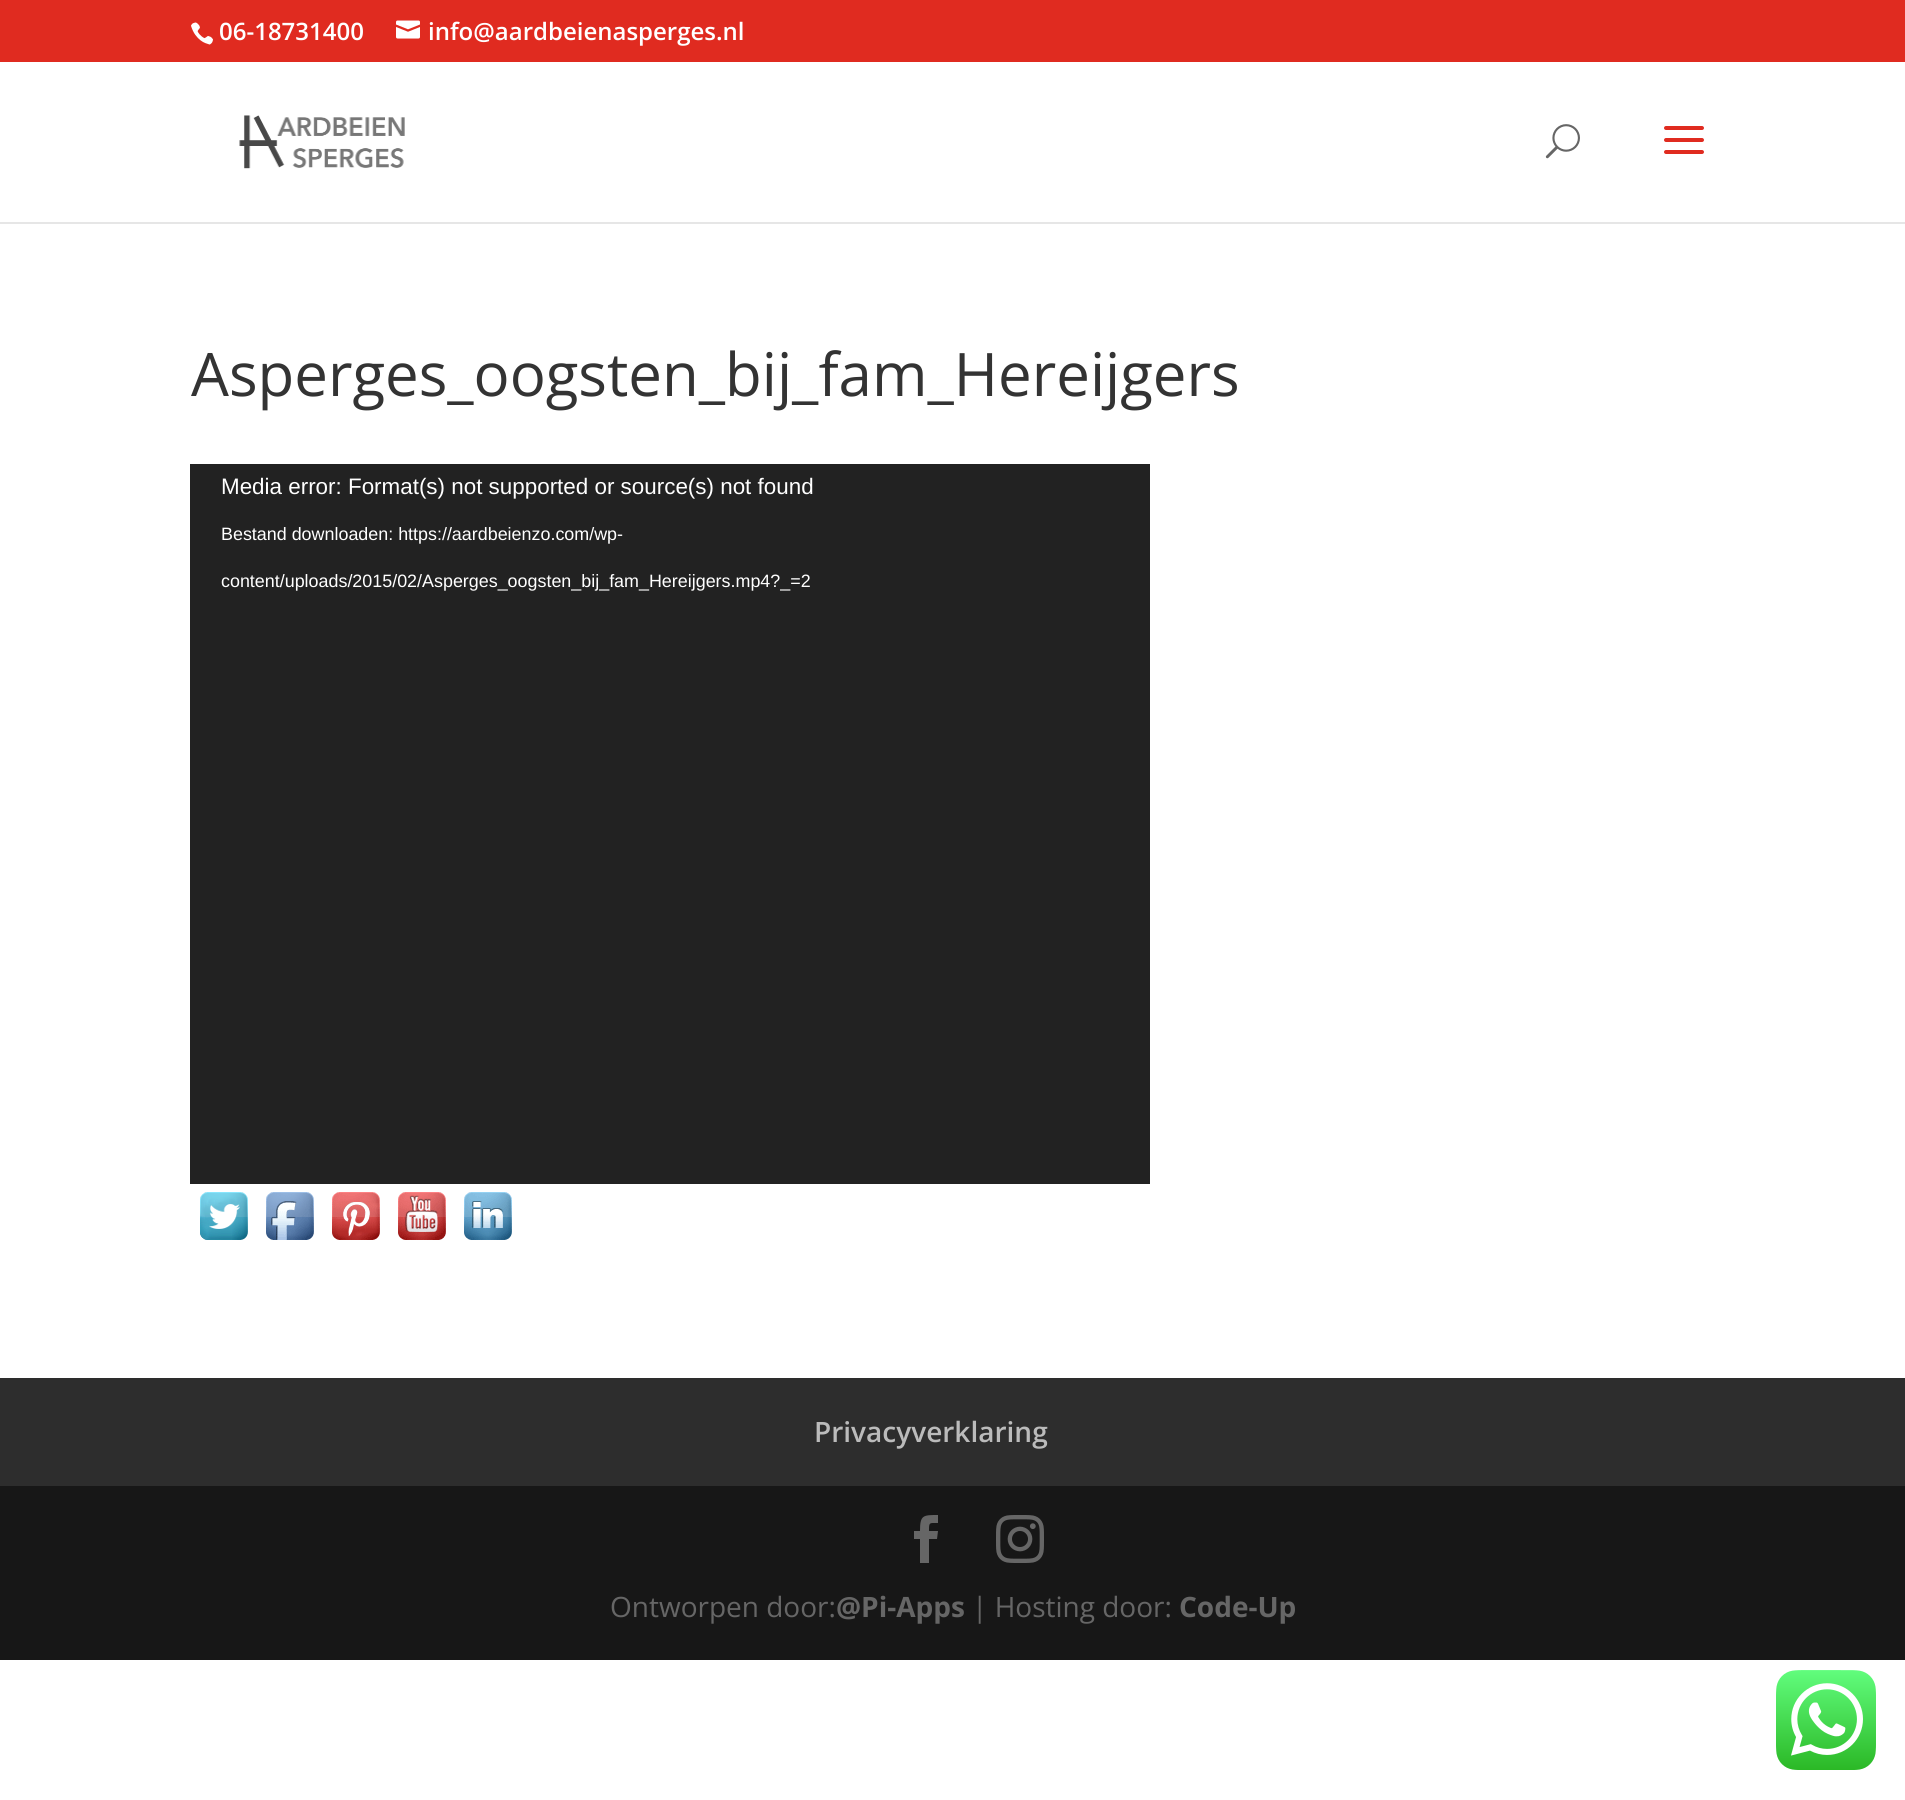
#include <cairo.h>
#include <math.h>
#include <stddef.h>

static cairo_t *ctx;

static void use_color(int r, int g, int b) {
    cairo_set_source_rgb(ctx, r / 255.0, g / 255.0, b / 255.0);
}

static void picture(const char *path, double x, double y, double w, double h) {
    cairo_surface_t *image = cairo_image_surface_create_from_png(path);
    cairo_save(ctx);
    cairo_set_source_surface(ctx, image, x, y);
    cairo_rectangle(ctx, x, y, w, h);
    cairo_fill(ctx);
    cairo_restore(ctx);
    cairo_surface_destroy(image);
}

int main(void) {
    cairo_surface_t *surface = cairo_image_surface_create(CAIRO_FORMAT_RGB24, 1905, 1800);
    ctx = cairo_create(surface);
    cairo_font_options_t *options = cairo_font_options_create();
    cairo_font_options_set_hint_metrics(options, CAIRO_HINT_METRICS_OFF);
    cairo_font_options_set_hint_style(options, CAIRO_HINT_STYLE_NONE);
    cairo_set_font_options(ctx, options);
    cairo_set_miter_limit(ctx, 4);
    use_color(255, 255, 255);
    cairo_paint(ctx);
    use_color(224, 43, 32);
    cairo_rectangle(ctx, 0, 0, 1905, 62);
    cairo_fill(ctx);
    picture("img1.png", 191, 22, 22, 23);
    cairo_select_font_face(ctx, "Open Sans SemiBold", CAIRO_FONT_SLANT_NORMAL, CAIRO_FONT_WEIGHT_NORMAL);
    cairo_set_font_size(ctx, 24);
    use_color(255, 255, 255);
    cairo_move_to(ctx, 219, 40);
    cairo_show_text(ctx, "06-18731400");
    picture("img2.png", 396, 20, 24, 19);
    cairo_move_to(ctx, 428, 40);
    cairo_show_text(ctx, "info@aardbeienasperges.nl");
    use_color(230, 230, 230);
    cairo_rectangle(ctx, 0, 222, 1905, 2);
    cairo_fill(ctx);
    picture("img3.png", 239, 115, 166, 54);
    picture("img4.png", 1545, 124, 35, 35);
    picture("img5.png", 1664, 126, 40, 28);
    cairo_select_font_face(ctx, "Open Sans", CAIRO_FONT_SLANT_NORMAL, CAIRO_FONT_WEIGHT_NORMAL);
    cairo_set_font_size(ctx, 60);
    use_color(51, 51, 51);
    cairo_move_to(ctx, 191, 396);
    cairo_show_text(ctx, "Asperges_oogsten_bij_fam_Hereijgers");
    use_color(34, 34, 34);
    cairo_rectangle(ctx, 190, 464, 960, 720);
    cairo_fill(ctx);
    cairo_select_font_face(ctx, "Liberation Sans", CAIRO_FONT_SLANT_NORMAL, CAIRO_FONT_WEIGHT_NORMAL);
    cairo_set_font_size(ctx, 22.4);
    use_color(255, 255, 255);
    cairo_move_to(ctx, 221, 494);
    cairo_show_text(ctx, "Media error: Format(s) not supported or source(s) not found");
    cairo_set_font_size(ctx, 17.9);
    cairo_move_to(ctx, 221, 540);
    cairo_show_text(ctx, "Bestand downloaden: https://aardbeienzo.com/wp-");
    cairo_move_to(ctx, 221, 587);
    cairo_show_text(ctx, "content/uploads/2015/02/Asperges_oogsten_bij_fam_Hereijgers.mp4?_=2");
    picture("img6.png", 200, 1192, 48, 48);
    picture("img7.png", 266, 1192, 48, 48);
    picture("img8.png", 332, 1192, 48, 48);
    picture("img9.png", 398, 1192, 48, 48);
    picture("img10.png", 464, 1192, 48, 48);
    use_color(45, 45, 45);
    cairo_rectangle(ctx, 0, 1378, 1905, 108);
    cairo_fill(ctx);
    cairo_select_font_face(ctx, "Open Sans SemiBold", CAIRO_FONT_SLANT_NORMAL, CAIRO_FONT_WEIGHT_NORMAL);
    cairo_set_font_size(ctx, 28);
    use_color(187, 187, 187);
    cairo_move_to(ctx, 814, 1442);
    cairo_show_text(ctx, "Privacyverklaring");
    use_color(23, 23, 23);
    cairo_rectangle(ctx, 0, 1486, 1905, 174);
    cairo_fill(ctx);
    use_color(102, 102, 102);
    cairo_new_path(ctx);
    cairo_move_to(ctx, 920, 1563);
    cairo_line_to(ctx, 929, 1563);
    cairo_line_to(ctx, 929, 1539);
    cairo_line_to(ctx, 937, 1539);
    cairo_line_to(ctx, 938, 1531);
    cairo_line_to(ctx, 929, 1531);
    cairo_curve_to(ctx, 929, 1522, 929, 1523, 938, 1523);
    cairo_line_to(ctx, 938, 1515);
    cairo_curve_to(ctx, 923, 1515, 920, 1515, 920, 1531);
    cairo_line_to(ctx, 914, 1531);
    cairo_line_to(ctx, 914, 1539);
    cairo_line_to(ctx, 920, 1539);
    cairo_close_path(ctx);
    cairo_fill(ctx);
    picture("img11.png", 996, 1515, 48, 48);
    cairo_select_font_face(ctx, "Open Sans", CAIRO_FONT_SLANT_NORMAL, CAIRO_FONT_WEIGHT_NORMAL);
    cairo_move_to(ctx, 610, 1617);
    cairo_show_text(ctx, "Ontworpen door:");
    cairo_select_font_face(ctx, "Open Sans", CAIRO_FONT_SLANT_NORMAL, CAIRO_FONT_WEIGHT_BOLD);
    cairo_move_to(ctx, 836, 1617);
    cairo_show_text(ctx, "@Pi-Apps");
    cairo_select_font_face(ctx, "Open Sans", CAIRO_FONT_SLANT_NORMAL, CAIRO_FONT_WEIGHT_NORMAL);
    cairo_move_to(ctx, 972, 1617);
    cairo_show_text(ctx, "| Hosting door:");
    cairo_select_font_face(ctx, "Open Sans", CAIRO_FONT_SLANT_NORMAL, CAIRO_FONT_WEIGHT_BOLD);
    cairo_move_to(ctx, 1179, 1617);
    cairo_show_text(ctx, "Code-Up");
    picture("img12.png", 1776, 1670, 100, 100);
    cairo_surface_write_to_png(surface, "result.png");
    cairo_font_options_destroy(options);
    cairo_destroy(ctx);
    cairo_surface_destroy(surface);
    return 0;
}
